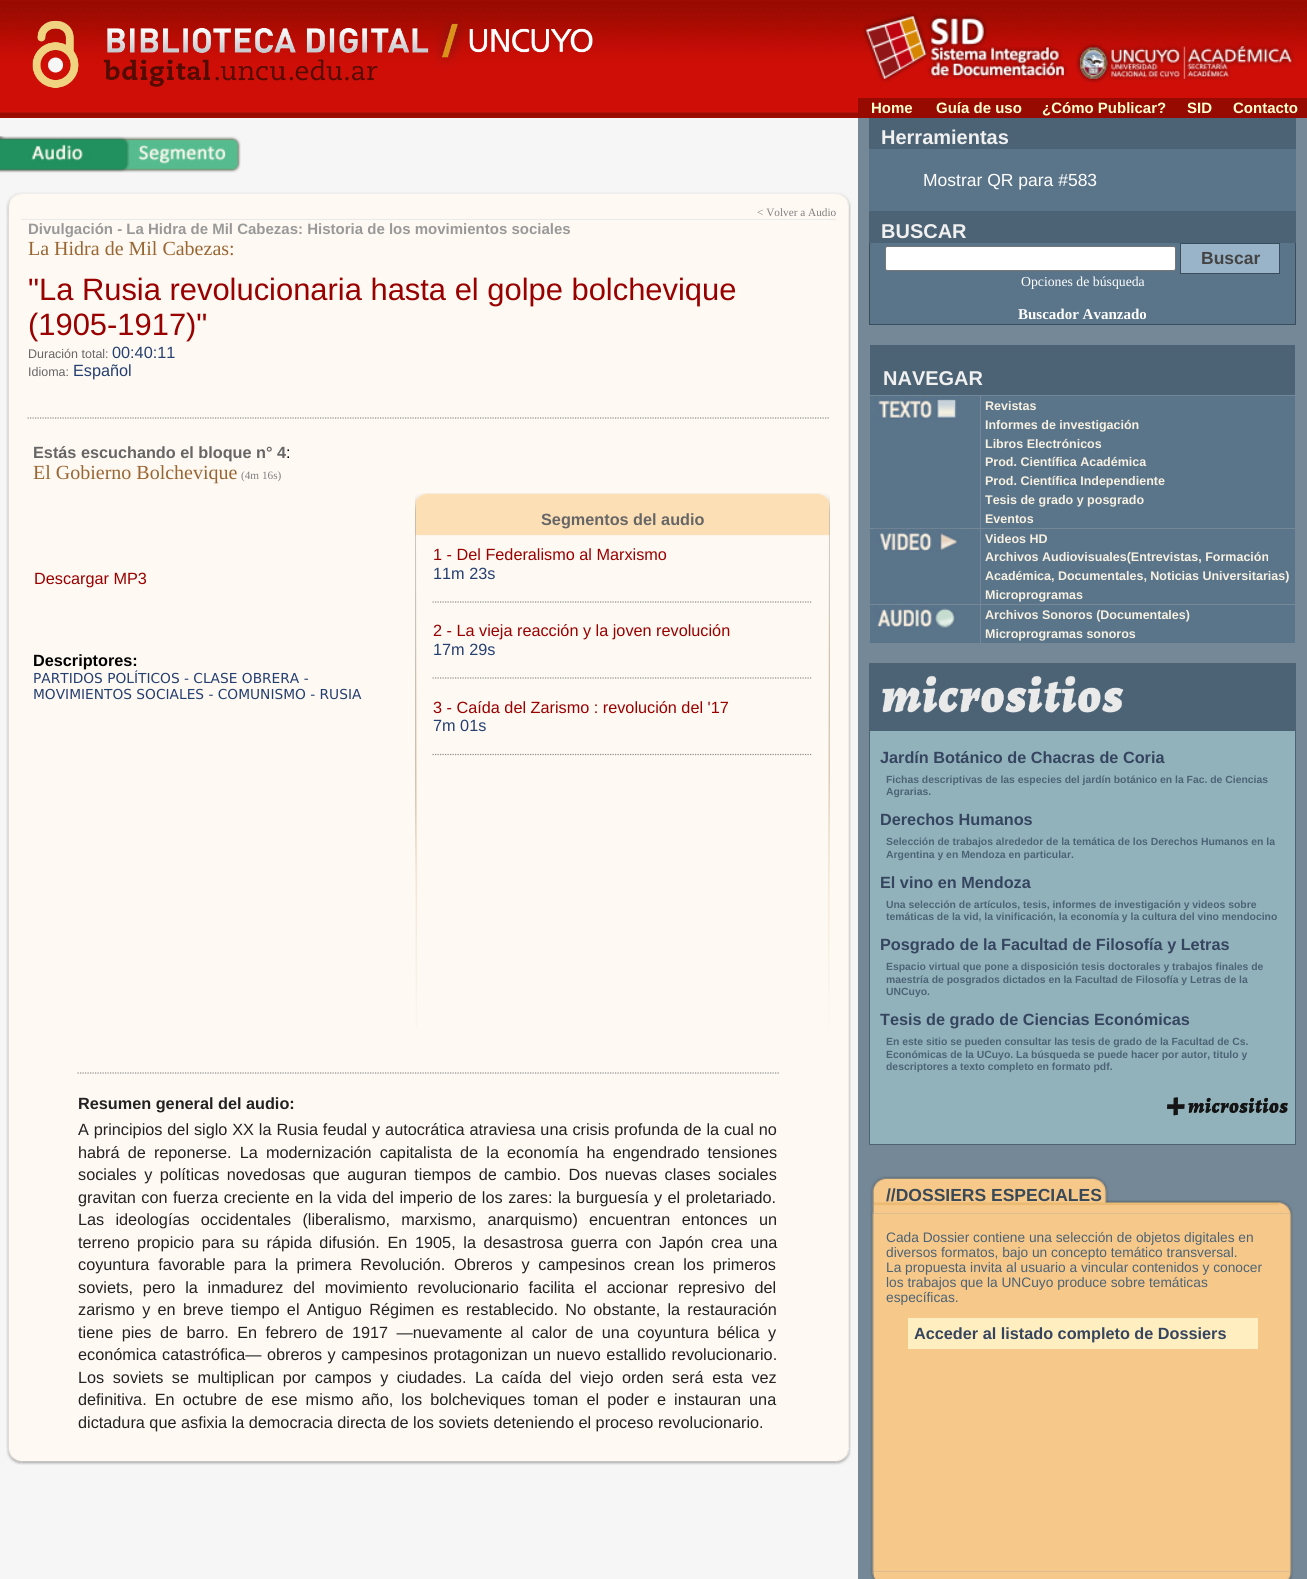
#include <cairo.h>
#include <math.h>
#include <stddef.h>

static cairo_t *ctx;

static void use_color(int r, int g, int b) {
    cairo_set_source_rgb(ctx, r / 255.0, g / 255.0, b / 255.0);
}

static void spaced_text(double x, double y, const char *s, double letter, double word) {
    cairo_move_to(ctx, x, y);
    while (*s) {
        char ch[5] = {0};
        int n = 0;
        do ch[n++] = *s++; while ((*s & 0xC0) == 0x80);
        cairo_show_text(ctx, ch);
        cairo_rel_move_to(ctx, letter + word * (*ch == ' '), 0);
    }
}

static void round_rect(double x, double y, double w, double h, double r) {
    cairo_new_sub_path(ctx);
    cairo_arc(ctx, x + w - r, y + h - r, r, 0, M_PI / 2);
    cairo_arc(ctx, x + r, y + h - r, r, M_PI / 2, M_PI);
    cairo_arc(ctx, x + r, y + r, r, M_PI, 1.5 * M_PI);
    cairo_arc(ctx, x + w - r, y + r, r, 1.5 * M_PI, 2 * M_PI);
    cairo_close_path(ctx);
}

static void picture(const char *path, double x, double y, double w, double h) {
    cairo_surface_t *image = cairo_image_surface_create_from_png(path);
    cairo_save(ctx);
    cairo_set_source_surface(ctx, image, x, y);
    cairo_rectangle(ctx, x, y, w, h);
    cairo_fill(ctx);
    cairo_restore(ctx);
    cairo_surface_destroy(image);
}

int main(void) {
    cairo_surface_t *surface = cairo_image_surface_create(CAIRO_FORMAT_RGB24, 1307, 1579);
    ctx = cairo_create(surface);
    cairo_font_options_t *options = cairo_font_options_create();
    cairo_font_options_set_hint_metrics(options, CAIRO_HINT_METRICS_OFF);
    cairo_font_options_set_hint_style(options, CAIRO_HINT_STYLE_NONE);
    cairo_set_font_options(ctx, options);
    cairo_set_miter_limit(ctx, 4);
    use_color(246, 246, 246);
    cairo_paint(ctx);
    use_color(157, 12, 0);
    cairo_rectangle(ctx, 0, 0, 1307, 118);
    cairo_fill(ctx);
    picture("img1.png", 0, 1, 1307, 114);
    picture("img2.png", 32, 19, 561, 69);
    picture("img3.png", 862, 13, 433, 70);
    use_color(150, 10, 2);
    cairo_rectangle(ctx, 858, 98, 449, 20);
    cairo_fill(ctx);
    cairo_select_font_face(ctx, "Liberation Sans", CAIRO_FONT_SLANT_NORMAL, CAIRO_FONT_WEIGHT_BOLD);
    cairo_set_font_size(ctx, 15);
    use_color(255, 255, 204);
    cairo_move_to(ctx, 871, 113);
    cairo_show_text(ctx, "Home");
    cairo_move_to(ctx, 936, 113);
    cairo_show_text(ctx, "Guía de uso");
    cairo_move_to(ctx, 1042, 113);
    cairo_show_text(ctx, "¿Cómo Publicar?");
    cairo_move_to(ctx, 1187, 113);
    cairo_show_text(ctx, "SID");
    cairo_move_to(ctx, 1233, 113);
    cairo_show_text(ctx, "Contacto");
    picture("img4.png", 0, 136, 241, 37);
    picture("img9.png", 6, 218, 15, 1231);
    picture("img5.png", 6, 192, 15, 27);
    picture("img6.png", 21, 192, 49, 27);
    picture("img7.png", 70, 192, 766, 27);
    cairo_select_font_face(ctx, "Liberation Serif", CAIRO_FONT_SLANT_NORMAL, CAIRO_FONT_WEIGHT_NORMAL);
    cairo_set_font_size(ctx, 11.25);
    use_color(128, 128, 128);
    cairo_move_to(ctx, 757, 216);
    cairo_show_text(ctx, "< Volver a Audio");
    picture("img11.png", 836, 218, 15, 1231);
    picture("img8.png", 836, 192, 15, 27);
    use_color(254, 249, 242);
    cairo_rectangle(ctx, 21, 220, 815, 1229);
    cairo_fill(ctx);
    use_color(234, 234, 234);
    cairo_rectangle(ctx, 21, 219, 815, 1);
    cairo_fill(ctx);
    cairo_select_font_face(ctx, "Liberation Sans", CAIRO_FONT_SLANT_NORMAL, CAIRO_FONT_WEIGHT_BOLD);
    cairo_set_font_size(ctx, 15);
    use_color(153, 153, 153);
    cairo_move_to(ctx, 28, 234);
    cairo_show_text(ctx, "Divulgación - La Hidra de Mil Cabezas: Historia de los movimientos sociales");
    cairo_select_font_face(ctx, "Liberation Serif", CAIRO_FONT_SLANT_NORMAL, CAIRO_FONT_WEIGHT_NORMAL);
    cairo_set_font_size(ctx, 20);
    use_color(153, 102, 51);
    cairo_move_to(ctx, 28, 255);
    cairo_show_text(ctx, "La Hidra de Mil Cabezas:");
    cairo_select_font_face(ctx, "Liberation Sans", CAIRO_FONT_SLANT_NORMAL, CAIRO_FONT_WEIGHT_NORMAL);
    cairo_set_font_size(ctx, 30.9);
    use_color(153, 0, 0);
    cairo_move_to(ctx, 28, 300);
    cairo_show_text(ctx, "\"La Rusia revolucionaria hasta el golpe bolchevique");
    cairo_move_to(ctx, 28, 335);
    cairo_show_text(ctx, "(1905-1917)\"");
    cairo_set_font_size(ctx, 12.5);
    use_color(102, 102, 102);
    cairo_move_to(ctx, 28, 358);
    cairo_show_text(ctx, "Duración total:");
    cairo_set_font_size(ctx, 16.25);
    use_color(36, 63, 113);
    cairo_move_to(ctx, 112, 358);
    cairo_show_text(ctx, "00:40:11");
    cairo_set_font_size(ctx, 12.5);
    use_color(102, 102, 102);
    cairo_move_to(ctx, 28, 376);
    cairo_show_text(ctx, "Idioma:");
    cairo_set_font_size(ctx, 16.25);
    use_color(36, 63, 113);
    cairo_move_to(ctx, 73, 376);
    cairo_show_text(ctx, "Español");
    cairo_new_path(ctx);
    cairo_move_to(ctx, 27.5, 418);
    cairo_line_to(ctx, 830, 418);
    use_color(142, 142, 142);
    cairo_set_line_width(ctx, 1.2);
    cairo_set_dash(ctx, (double[]){1.25, 1.25}, 2, 0);
    cairo_stroke(ctx);
    cairo_select_font_face(ctx, "Liberation Sans", CAIRO_FONT_SLANT_NORMAL, CAIRO_FONT_WEIGHT_BOLD);
    use_color(102, 102, 102);
    cairo_move_to(ctx, 33, 458);
    cairo_show_text(ctx, "Estás escuchando el bloque n° 4");
    cairo_select_font_face(ctx, "Liberation Sans", CAIRO_FONT_SLANT_NORMAL, CAIRO_FONT_WEIGHT_NORMAL);
    use_color(0, 0, 0);
    cairo_move_to(ctx, 286, 458);
    cairo_show_text(ctx, ":");
    cairo_select_font_face(ctx, "Liberation Serif", CAIRO_FONT_SLANT_NORMAL, CAIRO_FONT_WEIGHT_NORMAL);
    cairo_set_font_size(ctx, 20);
    use_color(153, 102, 51);
    cairo_move_to(ctx, 33, 479);
    cairo_show_text(ctx, "El Gobierno Bolchevique");
    cairo_set_font_size(ctx, 11.25);
    use_color(128, 128, 128);
    cairo_move_to(ctx, 241, 479);
    cairo_show_text(ctx, "(4m 16s)");
    cairo_select_font_face(ctx, "Liberation Sans", CAIRO_FONT_SLANT_NORMAL, CAIRO_FONT_WEIGHT_NORMAL);
    cairo_set_font_size(ctx, 16.25);
    use_color(153, 0, 0);
    cairo_move_to(ctx, 34, 584);
    cairo_show_text(ctx, "Descargar MP3");
    cairo_select_font_face(ctx, "Liberation Sans", CAIRO_FONT_SLANT_NORMAL, CAIRO_FONT_WEIGHT_BOLD);
    use_color(0, 0, 0);
    cairo_move_to(ctx, 33, 666);
    cairo_show_text(ctx, "Descriptores:");
    cairo_select_font_face(ctx, "DejaVu Sans", CAIRO_FONT_SLANT_NORMAL, CAIRO_FONT_WEIGHT_NORMAL);
    cairo_set_font_size(ctx, 13.75);
    use_color(36, 63, 113);
    cairo_move_to(ctx, 33, 683);
    cairo_show_text(ctx, "PARTIDOS POLÍTICOS - CLASE OBRERA -");
    cairo_move_to(ctx, 33, 699);
    cairo_show_text(ctx, "MOVIMIENTOS SOCIALES - COMUNISMO - RUSIA");
    picture("img10.png", 415, 493, 415, 535);
    cairo_select_font_face(ctx, "Liberation Sans", CAIRO_FONT_SLANT_NORMAL, CAIRO_FONT_WEIGHT_BOLD);
    cairo_set_font_size(ctx, 16.25);
    use_color(102, 102, 102);
    cairo_move_to(ctx, 541, 525);
    cairo_show_text(ctx, "Segmentos del audio");
    cairo_select_font_face(ctx, "Liberation Sans", CAIRO_FONT_SLANT_NORMAL, CAIRO_FONT_WEIGHT_NORMAL);
    use_color(153, 0, 0);
    cairo_move_to(ctx, 433, 560);
    cairo_show_text(ctx, "1 - Del Federalismo al Marxismo");
    use_color(36, 63, 113);
    cairo_move_to(ctx, 433, 579);
    cairo_show_text(ctx, "11m 23s");
    cairo_new_path(ctx);
    cairo_move_to(ctx, 432.5, 602);
    cairo_line_to(ctx, 812.5, 602);
    use_color(142, 142, 142);
    cairo_stroke(ctx);
    use_color(153, 0, 0);
    cairo_move_to(ctx, 433, 636);
    cairo_show_text(ctx, "2 - La vieja reacción y la joven revolución");
    use_color(36, 63, 113);
    cairo_move_to(ctx, 433, 655);
    cairo_show_text(ctx, "17m 29s");
    cairo_new_path(ctx);
    cairo_move_to(ctx, 432.5, 678);
    cairo_line_to(ctx, 812.5, 678);
    use_color(142, 142, 142);
    cairo_stroke(ctx);
    use_color(153, 0, 0);
    cairo_move_to(ctx, 433, 713);
    cairo_show_text(ctx, "3 - Caída del Zarismo : revolución del '17");
    use_color(36, 63, 113);
    cairo_move_to(ctx, 433, 731);
    cairo_show_text(ctx, "7m 01s");
    cairo_new_path(ctx);
    cairo_move_to(ctx, 432.5, 754.5);
    cairo_line_to(ctx, 812.5, 754.5);
    use_color(142, 142, 142);
    cairo_stroke(ctx);
    cairo_new_path(ctx);
    cairo_move_to(ctx, 77.5, 1073);
    cairo_line_to(ctx, 780, 1073);
    cairo_stroke(ctx);
    cairo_select_font_face(ctx, "Liberation Sans", CAIRO_FONT_SLANT_NORMAL, CAIRO_FONT_WEIGHT_BOLD);
    use_color(34, 34, 34);
    cairo_move_to(ctx, 78, 1109);
    cairo_show_text(ctx, "Resumen general del audio:");
    cairo_select_font_face(ctx, "Liberation Sans", CAIRO_FONT_SLANT_NORMAL, CAIRO_FONT_WEIGHT_NORMAL);
    spaced_text(78, 1135, "A principios del siglo XX la Rusia feudal y autocrática atraviesa una crisis profunda de la cual no", 0, 0.4);
    spaced_text(78, 1158, "habrá de reponerse. La modernización capitalista de la economía ha engendrado tensiones", 0, 3.6);
    spaced_text(78, 1180, "sociales y políticas novedosas que auguran tiempos de cambio. Dos nuevas clases sociales", 0, 2.9);
    spaced_text(78, 1203, "gravitan con fuerza creciente en la vida del imperio de los zares: la burguesía y el proletariado.", 0, 1);
    spaced_text(78, 1225, "Las ideologías occidentales (liberalismo, marxismo, anarquismo) encuentran entonces un", 0, 6.75);
    spaced_text(78, 1248, "terreno propicio para su rápida difusión. En 1905, la desastrosa guerra con Japón crea una", 0, 3.1);
    spaced_text(78, 1270, "coyuntura favorable para la primera Revolución. Obreros y campesinos crean los primeros", 0, 4.25);
    spaced_text(78, 1293, "soviets, pero la inmadurez del movimiento revolucionario facilita el accionar represivo del", 0, 5.25);
    spaced_text(78, 1315, "zarismo y en breve tiempo el Antiguo Régimen es restablecido. No obstante, la restauración", 0, 2.75);
    spaced_text(78, 1338, "tiene pies de barro. En febrero de 1917 —nuevamente al calor de una coyuntura bélica y", 0, 3.9);
    spaced_text(78, 1360, "económica catastrófica— obreros y campesinos protagonizan un nuevo estallido revolucionario.", 0, 1);
    spaced_text(78, 1383, "Los soviets se multiplican por campos y ciudades. La caída del viejo orden será esta vez", 0, 4);
    spaced_text(78, 1405, "definitiva. En octubre de ese mismo año, los bolcheviques toman el poder e instauran una", 0, 3.6);
    cairo_move_to(ctx, 78, 1428);
    cairo_show_text(ctx, "dictadura que asfixia la democracia directa de los soviets deteniendo el proceso revolucionario.");
    picture("img12.png", 6, 1449, 15, 16);
    picture("img13.png", 21, 1449, 816, 16);
    picture("img14.png", 836, 1449, 15, 16);
    use_color(117, 136, 151);
    cairo_rectangle(ctx, 858, 118, 449, 1461);
    cairo_fill(ctx);
    use_color(76, 99, 117);
    cairo_rectangle(ctx, 869, 118, 427, 31);
    cairo_fill(ctx);
    cairo_select_font_face(ctx, "Liberation Sans", CAIRO_FONT_SLANT_NORMAL, CAIRO_FONT_WEIGHT_BOLD);
    cairo_set_font_size(ctx, 20);
    use_color(240, 240, 240);
    cairo_move_to(ctx, 881, 144);
    cairo_show_text(ctx, "Herramientas");
    use_color(90, 117, 138);
    cairo_rectangle(ctx, 869, 149, 427, 62);
    cairo_fill(ctx);
    cairo_select_font_face(ctx, "Liberation Sans", CAIRO_FONT_SLANT_NORMAL, CAIRO_FONT_WEIGHT_NORMAL);
    cairo_set_font_size(ctx, 17.5);
    use_color(255, 255, 255);
    cairo_move_to(ctx, 923, 186);
    cairo_show_text(ctx, "Mostrar QR para #583");
    use_color(76, 99, 117);
    cairo_rectangle(ctx, 869, 211, 427, 32);
    cairo_fill(ctx);
    cairo_select_font_face(ctx, "Liberation Sans", CAIRO_FONT_SLANT_NORMAL, CAIRO_FONT_WEIGHT_BOLD);
    cairo_set_font_size(ctx, 20);
    use_color(240, 240, 240);
    cairo_move_to(ctx, 881, 238);
    cairo_show_text(ctx, "BUSCAR");
    use_color(90, 117, 138);
    cairo_rectangle(ctx, 870, 243, 425, 81);
    cairo_fill(ctx);
    use_color(58, 77, 90);
    cairo_rectangle(ctx, 1295, 243, 1, 82);
    cairo_fill(ctx);
    cairo_rectangle(ctx, 869, 324, 427, 1);
    cairo_fill(ctx);
    cairo_rectangle(ctx, 869, 243, 1, 82);
    cairo_fill(ctx);
    use_color(255, 255, 255);
    round_rect(885.5, 246.5, 290, 24, 2);
    cairo_fill_preserve(ctx);
    use_color(118, 118, 118);
    cairo_set_line_width(ctx, 1);
    cairo_set_dash(ctx, NULL, 0, 0);
    cairo_stroke(ctx);
    use_color(153, 179, 200);
    cairo_rectangle(ctx, 1180.5, 243.5, 99, 30);
    cairo_fill_preserve(ctx);
    use_color(58, 77, 90);
    cairo_stroke(ctx);
    cairo_set_font_size(ctx, 17.5);
    use_color(68, 68, 68);
    cairo_move_to(ctx, 1201, 264);
    cairo_show_text(ctx, "Buscar");
    cairo_select_font_face(ctx, "Liberation Serif", CAIRO_FONT_SLANT_NORMAL, CAIRO_FONT_WEIGHT_NORMAL);
    cairo_set_font_size(ctx, 13.75);
    use_color(255, 255, 255);
    cairo_move_to(ctx, 1021, 286);
    cairo_show_text(ctx, "Opciones de búsqueda");
    cairo_select_font_face(ctx, "Liberation Serif", CAIRO_FONT_SLANT_NORMAL, CAIRO_FONT_WEIGHT_BOLD);
    cairo_set_font_size(ctx, 15);
    cairo_move_to(ctx, 1018, 319);
    cairo_show_text(ctx, "Buscador Avanzado");
    use_color(76, 99, 117);
    cairo_rectangle(ctx, 870, 345, 425, 50);
    cairo_fill(ctx);
    cairo_select_font_face(ctx, "Liberation Sans", CAIRO_FONT_SLANT_NORMAL, CAIRO_FONT_WEIGHT_BOLD);
    cairo_set_font_size(ctx, 20);
    use_color(240, 240, 240);
    cairo_move_to(ctx, 883, 385);
    cairo_show_text(ctx, "NAVEGAR");
    use_color(90, 117, 138);
    cairo_rectangle(ctx, 870, 396, 110, 132);
    cairo_fill(ctx);
    picture("img15.png", 874, 396, 86, 24);
    cairo_rectangle(ctx, 981, 396, 314, 132);
    cairo_fill(ctx);
    cairo_set_font_size(ctx, 12.5);
    use_color(248, 241, 225);
    cairo_move_to(ctx, 985, 410);
    cairo_show_text(ctx, "Revistas");
    cairo_move_to(ctx, 985, 429);
    cairo_show_text(ctx, "Informes de investigación");
    cairo_move_to(ctx, 985, 448);
    cairo_show_text(ctx, "Libros Electrónicos");
    cairo_move_to(ctx, 985, 466);
    cairo_show_text(ctx, "Prod. Científica Académica");
    cairo_move_to(ctx, 985, 485);
    cairo_show_text(ctx, "Prod. Científica Independiente");
    cairo_move_to(ctx, 985, 504);
    cairo_show_text(ctx, "Tesis de grado y posgrado");
    cairo_move_to(ctx, 985, 523);
    cairo_show_text(ctx, "Eventos");
    use_color(90, 117, 138);
    cairo_rectangle(ctx, 870, 529, 110, 75);
    cairo_fill(ctx);
    picture("img16.png", 874, 528, 87, 25);
    cairo_rectangle(ctx, 981, 529, 314, 75);
    cairo_fill(ctx);
    use_color(248, 241, 225);
    cairo_move_to(ctx, 985, 543);
    cairo_show_text(ctx, "Videos HD");
    cairo_move_to(ctx, 985, 561);
    cairo_show_text(ctx, "Archivos Audiovisuales(Entrevistas, Formación");
    cairo_move_to(ctx, 985, 580);
    cairo_show_text(ctx, "Académica, Documentales, Noticias Universitarias)");
    cairo_move_to(ctx, 985, 599);
    cairo_show_text(ctx, "Microprogramas");
    use_color(90, 117, 138);
    cairo_rectangle(ctx, 870, 605, 110, 38);
    cairo_fill(ctx);
    picture("img17.png", 874, 605, 82, 24);
    cairo_rectangle(ctx, 981, 605, 314, 38);
    cairo_fill(ctx);
    use_color(248, 241, 225);
    cairo_move_to(ctx, 985, 619);
    cairo_show_text(ctx, "Archivos Sonoros (Documentales)");
    cairo_move_to(ctx, 985, 638);
    cairo_show_text(ctx, "Microprogramas sonoros");
    use_color(76, 99, 117);
    cairo_rectangle(ctx, 869, 663, 427, 67);
    cairo_fill(ctx);
    picture("img18.png", 882, 675, 242, 38);
    use_color(145, 178, 187);
    cairo_rectangle(ctx, 869.5, 730.5, 426, 414);
    cairo_fill_preserve(ctx);
    use_color(76, 99, 117);
    cairo_stroke(ctx);
    cairo_set_font_size(ctx, 16.25);
    use_color(54, 69, 95);
    cairo_move_to(ctx, 880, 763);
    cairo_show_text(ctx, "Jardín Botánico de Chacras de Coria");
    cairo_set_font_size(ctx, 10.4);
    use_color(76, 99, 117);
    cairo_move_to(ctx, 886, 783);
    cairo_show_text(ctx, "Fichas descriptivas de las especies del jardín botánico en la Fac. de Ciencias");
    cairo_move_to(ctx, 886, 795);
    cairo_show_text(ctx, "Agrarias.");
    cairo_set_font_size(ctx, 16.25);
    use_color(54, 69, 95);
    cairo_move_to(ctx, 880, 825);
    cairo_show_text(ctx, "Derechos Humanos");
    cairo_set_font_size(ctx, 10.4);
    use_color(76, 99, 117);
    cairo_move_to(ctx, 886, 845);
    cairo_show_text(ctx, "Selección de trabajos alrededor de la temática de los Derechos Humanos en la");
    cairo_move_to(ctx, 886, 858);
    cairo_show_text(ctx, "Argentina y en Mendoza en particular.");
    cairo_set_font_size(ctx, 16.25);
    use_color(54, 69, 95);
    cairo_move_to(ctx, 880, 888);
    cairo_show_text(ctx, "El vino en Mendoza");
    cairo_set_font_size(ctx, 10.4);
    use_color(76, 99, 117);
    cairo_move_to(ctx, 886, 908);
    cairo_show_text(ctx, "Una selección de artículos, tesis, informes de investigación y videos sobre");
    cairo_move_to(ctx, 886, 920);
    cairo_show_text(ctx, "temáticas de la vid, la vinificación, la economía y la cultura del vino mendocino");
    cairo_set_font_size(ctx, 16.25);
    use_color(54, 69, 95);
    cairo_move_to(ctx, 880, 950);
    cairo_show_text(ctx, "Posgrado de la Facultad de Filosofía y Letras");
    cairo_set_font_size(ctx, 10.4);
    use_color(76, 99, 117);
    cairo_move_to(ctx, 886, 970);
    cairo_show_text(ctx, "Espacio virtual que pone a disposición tesis doctorales y trabajos finales de");
    cairo_move_to(ctx, 886, 983);
    cairo_show_text(ctx, "maestría de posgrados dictados en la Facultad de Filosofía y Letras de la");
    cairo_move_to(ctx, 886, 995);
    cairo_show_text(ctx, "UNCuyo.");
    cairo_set_font_size(ctx, 16.25);
    use_color(54, 69, 95);
    cairo_move_to(ctx, 880, 1025);
    cairo_show_text(ctx, "Tesis de grado de Ciencias Económicas");
    cairo_set_font_size(ctx, 10.4);
    use_color(76, 99, 117);
    cairo_move_to(ctx, 886, 1045);
    cairo_show_text(ctx, "En este sitio se pueden consultar las tesis de grado de la Facultad de Cs.");
    cairo_move_to(ctx, 886, 1058);
    cairo_show_text(ctx, "Económicas de la UCuyo. La búsqueda se puede hacer por autor, titulo y");
    cairo_move_to(ctx, 886, 1070);
    cairo_show_text(ctx, "descriptores a texto completo en formato pdf.");
    picture("img19.png", 1167, 1097, 121, 19);
    picture("img20.png", 870, 1176, 423, 38);
    cairo_set_font_size(ctx, 17.5);
    use_color(57, 73, 87);
    cairo_move_to(ctx, 886, 1201);
    cairo_show_text(ctx, "//DOSSIERS ESPECIALES");
    picture("img21.png", 870, 1213, 423, 359);
    cairo_select_font_face(ctx, "Liberation Sans", CAIRO_FONT_SLANT_NORMAL, CAIRO_FONT_WEIGHT_NORMAL);
    cairo_set_font_size(ctx, 13.75);
    use_color(76, 99, 117);
    cairo_move_to(ctx, 886, 1242);
    cairo_show_text(ctx, "Cada Dossier contiene una selección de objetos digitales en");
    cairo_move_to(ctx, 886, 1257);
    cairo_show_text(ctx, "diversos formatos, bajo un concepto temático transversal.");
    cairo_move_to(ctx, 886, 1272);
    cairo_show_text(ctx, "La propuesta invita al usuario a vincular contenidos y conocer");
    cairo_move_to(ctx, 886, 1287);
    cairo_show_text(ctx, "los trabajos que la UNCuyo produce sobre temáticas");
    cairo_move_to(ctx, 886, 1302);
    cairo_show_text(ctx, "específicas.");
    use_color(255, 238, 191);
    cairo_rectangle(ctx, 908, 1318, 350, 31);
    cairo_fill(ctx);
    cairo_select_font_face(ctx, "Liberation Sans", CAIRO_FONT_SLANT_NORMAL, CAIRO_FONT_WEIGHT_BOLD);
    cairo_set_font_size(ctx, 16.25);
    use_color(54, 69, 95);
    cairo_move_to(ctx, 914, 1339);
    cairo_show_text(ctx, "Acceder al listado completo de Dossiers");
    picture("img22.png", 870, 1571, 423, 8);
    cairo_surface_write_to_png(surface, "result.png");
    cairo_font_options_destroy(options);
    cairo_destroy(ctx);
    cairo_surface_destroy(surface);
    return 0;
}
